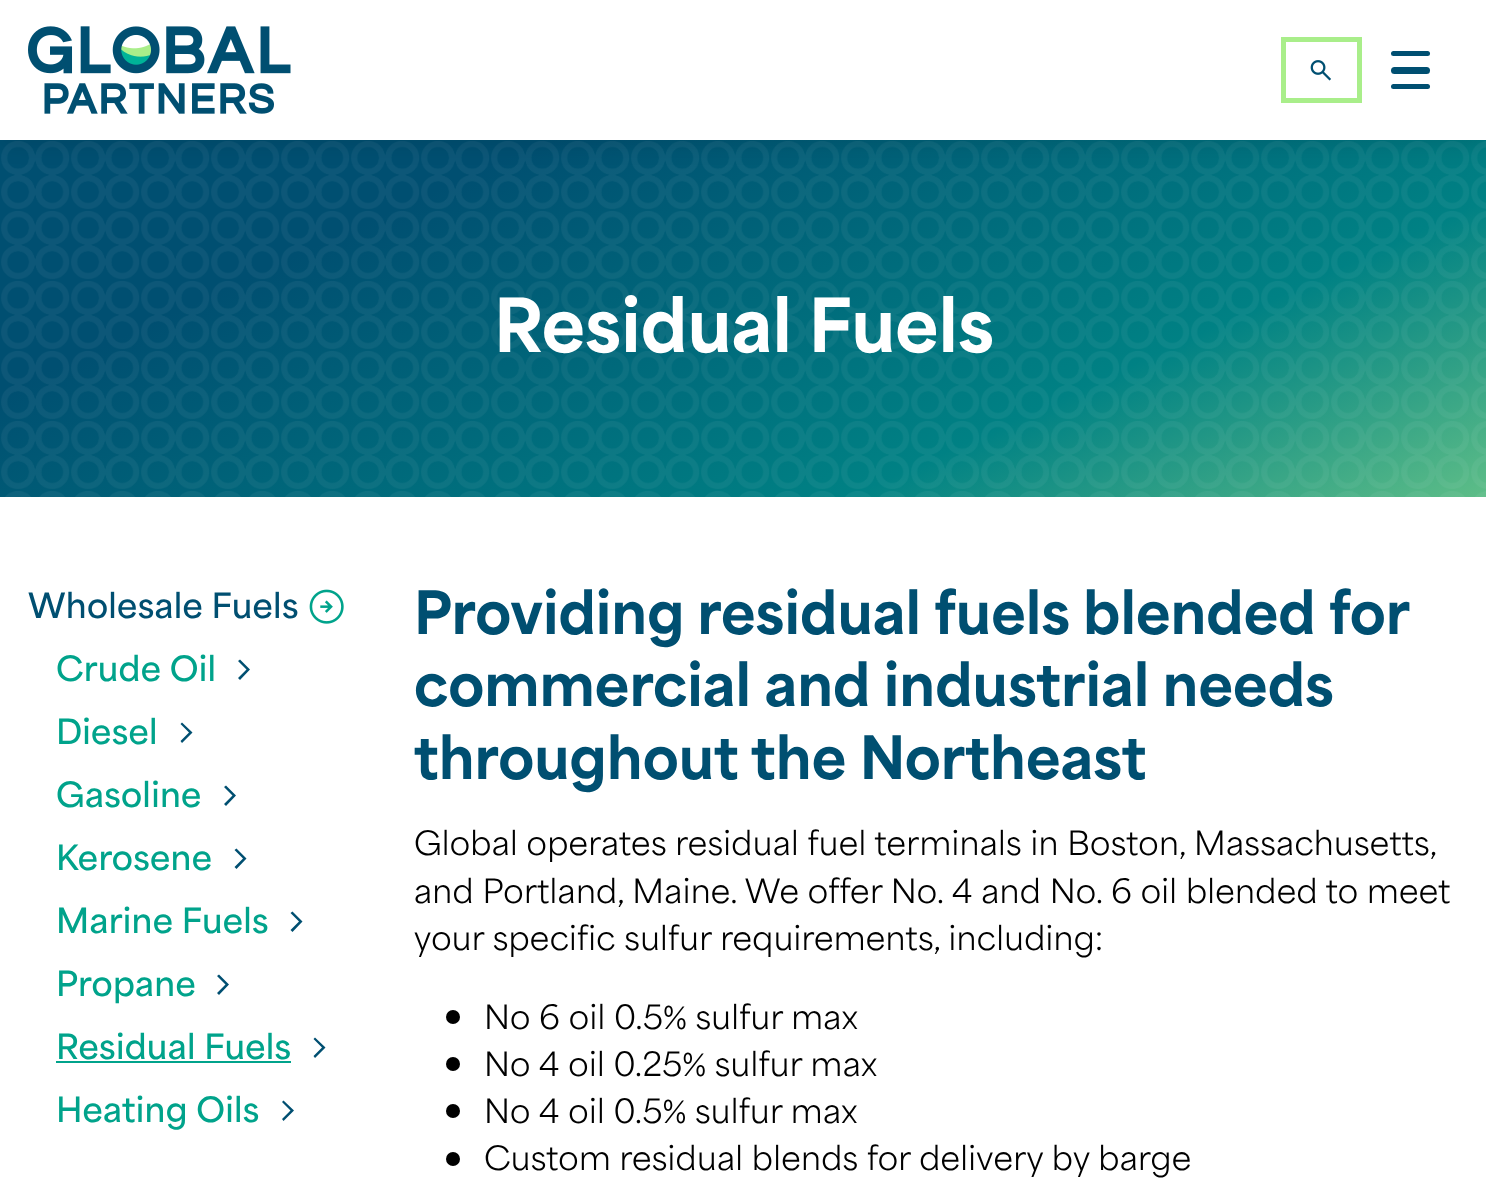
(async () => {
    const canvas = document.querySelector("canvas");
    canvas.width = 1486;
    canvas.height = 1181;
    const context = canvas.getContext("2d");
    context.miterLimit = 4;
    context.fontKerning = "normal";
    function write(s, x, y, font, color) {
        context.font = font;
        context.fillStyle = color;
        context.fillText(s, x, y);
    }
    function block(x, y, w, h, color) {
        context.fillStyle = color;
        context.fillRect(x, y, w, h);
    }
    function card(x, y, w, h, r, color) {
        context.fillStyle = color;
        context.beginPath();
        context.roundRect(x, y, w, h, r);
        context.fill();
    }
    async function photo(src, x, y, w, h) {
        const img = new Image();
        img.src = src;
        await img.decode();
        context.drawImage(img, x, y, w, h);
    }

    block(0, 0, 1486, 1181, "rgb(255, 255, 255)");
    await photo("media/3.png", 0, 140, 1486, 357);
    context.fillStyle = "rgba(0, 0, 0, 0.1)";
    context.filter = "blur(10.5px)";
    context.beginPath();
    context.rect(0, 4, 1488, 140);
    context.fill();
    context.filter = "none";
    block(0, 0, 1486, 140, "rgb(255, 255, 255)");
    await photo("media/1.png", 28, 26, 263, 88);
    context.strokeStyle = "rgb(169, 238, 138)";
    context.lineWidth = 5;
    context.strokeRect(1283.5, 39.5, 76, 61);
    await photo("media/2.png", 1310, 60, 21, 21);
    card(1391, 51, 39, 5, 2.5, "rgb(0, 79, 113)");
    card(1391, 67, 39, 7, 3.5, "rgb(0, 79, 113)");
    card(1391, 84, 39, 5, 2.5, "rgb(0, 79, 113)");
    write("Residual Fuels", 494, 352, "900 70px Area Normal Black", "rgb(255, 255, 255)");
    context.letterSpacing = "0.28px";
    write("Wholesale Fuels", 28, 618, "bold 32.75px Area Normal", "rgb(0, 79, 113)");
    await photo("media/4.png", 309, 589, 35, 35);
    write("Crude Oil", 56, 681, "bold 32.75px Area Normal", "rgb(0, 163, 139)");
    context.fillStyle = "rgb(0, 79, 113)";
    context.beginPath();
    context.moveTo(240, 680);
    context.lineTo(238, 678);
    context.lineTo(246.5, 669.5);
    context.lineTo(238, 661);
    context.lineTo(240, 659.5);
    context.lineTo(250, 669.5);
    context.closePath();
    context.fill();
    write("Diesel", 56, 744, "bold 32.75px Area Normal", "rgb(0, 163, 139)");
    context.fillStyle = "rgb(0, 79, 113)";
    context.beginPath();
    context.moveTo(182, 743);
    context.lineTo(180.5, 741);
    context.lineTo(189, 732.5);
    context.lineTo(180.5, 724);
    context.lineTo(182, 722.5);
    context.lineTo(192.5, 732.5);
    context.closePath();
    context.fill();
    write("Gasoline", 56, 807, "bold 32.75px Area Normal", "rgb(0, 163, 139)");
    context.fillStyle = "rgb(0, 79, 113)";
    context.beginPath();
    context.moveTo(226, 806);
    context.lineTo(224, 804);
    context.lineTo(232.5, 795.5);
    context.lineTo(224, 787);
    context.lineTo(226, 785.5);
    context.lineTo(236, 795.5);
    context.closePath();
    context.fill();
    write("Kerosene", 56, 870, "bold 32.75px Area Normal", "rgb(0, 163, 139)");
    context.fillStyle = "rgb(0, 79, 113)";
    context.beginPath();
    context.moveTo(236.5, 869);
    context.lineTo(234.5, 867);
    context.lineTo(243, 858.5);
    context.lineTo(234.5, 850);
    context.lineTo(236.5, 848.5);
    context.lineTo(246.5, 858.5);
    context.closePath();
    context.fill();
    write("Marine Fuels", 56, 933, "bold 32.75px Area Normal", "rgb(0, 163, 139)");
    context.fillStyle = "rgb(0, 79, 113)";
    context.beginPath();
    context.moveTo(292.5, 932);
    context.lineTo(290.5, 930);
    context.lineTo(299, 921.5);
    context.lineTo(290.5, 913);
    context.lineTo(292.5, 911.5);
    context.lineTo(302.5, 921.5);
    context.closePath();
    context.fill();
    write("Propane", 56, 996, "bold 32.75px Area Normal", "rgb(0, 163, 139)");
    context.fillStyle = "rgb(0, 79, 113)";
    context.beginPath();
    context.moveTo(219, 995);
    context.lineTo(217, 993);
    context.lineTo(225.5, 984.5);
    context.lineTo(217, 976);
    context.lineTo(219, 974.5);
    context.lineTo(229, 984.5);
    context.closePath();
    context.fill();
    write("Residual Fuels", 56, 1059, "bold 32.75px Area Normal", "rgb(0, 163, 139)");
    block(56, 1061, 235, 2, "rgb(0, 163, 139)");
    context.fillStyle = "rgb(0, 79, 113)";
    context.beginPath();
    context.moveTo(315, 1058);
    context.lineTo(313.5, 1056);
    context.lineTo(322, 1047.5);
    context.lineTo(313.5, 1039);
    context.lineTo(315, 1037.5);
    context.lineTo(325.5, 1047.5);
    context.closePath();
    context.fill();
    write("Heating Oils", 56, 1122, "bold 32.75px Area Normal", "rgb(0, 163, 139)");
    context.fillStyle = "rgb(0, 79, 113)";
    context.beginPath();
    context.moveTo(283.5, 1121);
    context.lineTo(282, 1119);
    context.lineTo(290.5, 1110.5);
    context.lineTo(282, 1102);
    context.lineTo(283.5, 1100.5);
    context.lineTo(294, 1110.5);
    context.closePath();
    context.fill();
    context.letterSpacing = "0px";
    context.wordSpacing = "-0.5px";
    write("Providing residual fuels blended for", 414, 634, "900 56px Area Normal Black", "rgb(0, 79, 113)");
    context.wordSpacing = "0px";
    write("commercial and industrial needs", 414, 706, "900 56px Area Normal Black", "rgb(0, 79, 113)");
    write("throughout the Northeast", 414, 779, "900 56px Area Normal Black", "rgb(0, 79, 113)");
    context.letterSpacing = "0.28px";
    write("Global operates residual fuel terminals in Boston, Massachusetts,", 414, 855, "31.5px Area Normal", "rgb(0, 0, 0)");
    write("and Portland, Maine. We offer No. 4 and No. 6 oil blended to meet", 414, 903, "31.5px Area Normal", "rgb(0, 0, 0)");
    write("your specific sulfur requirements, including:", 414, 950, "31.5px Area Normal", "rgb(0, 0, 0)");
    context.beginPath();
    context.arc(453, 1017, 7, 0, Math.PI * 2);
    context.fill();
    write("No 6 oil 0.5% sulfur max", 484, 1029, "31.5px Area Normal", "rgb(0, 0, 0)");
    context.beginPath();
    context.arc(453, 1064, 7, 0, Math.PI * 2);
    context.fill();
    write("No 4 oil 0.25% sulfur max", 484, 1076, "31.5px Area Normal", "rgb(0, 0, 0)");
    context.beginPath();
    context.arc(453, 1111, 7, 0, Math.PI * 2);
    context.fill();
    write("No 4 oil 0.5% sulfur max", 484, 1123, "31.5px Area Normal", "rgb(0, 0, 0)");
    context.beginPath();
    context.arc(453, 1159, 7, 0, Math.PI * 2);
    context.fill();
    write("Custom residual blends for delivery by barge", 484, 1170, "31.5px Area Normal", "rgb(0, 0, 0)");
})();
